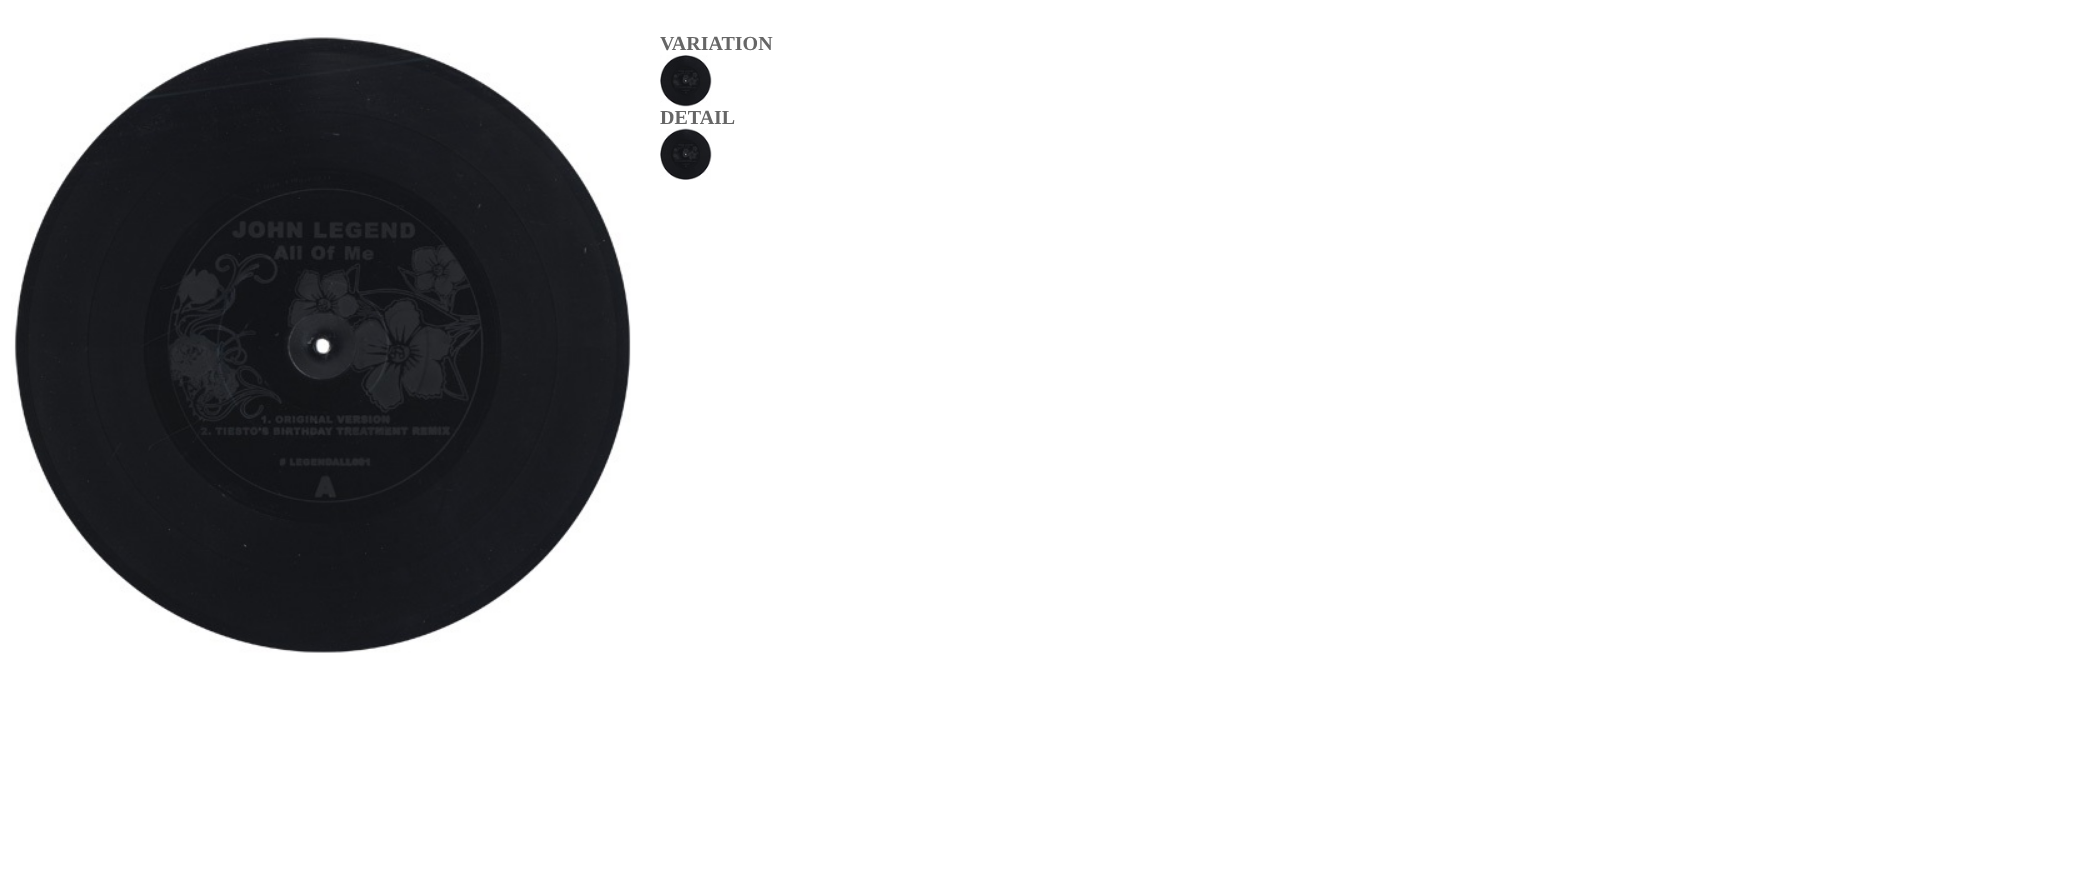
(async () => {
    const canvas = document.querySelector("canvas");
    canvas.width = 2084;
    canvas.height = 887;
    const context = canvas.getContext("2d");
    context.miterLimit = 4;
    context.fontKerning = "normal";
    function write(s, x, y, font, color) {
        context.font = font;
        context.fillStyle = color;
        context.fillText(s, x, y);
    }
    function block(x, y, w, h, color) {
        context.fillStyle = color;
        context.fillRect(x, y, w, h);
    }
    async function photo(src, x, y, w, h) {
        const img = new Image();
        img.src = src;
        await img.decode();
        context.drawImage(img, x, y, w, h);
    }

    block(0, 0, 2084, 887, "rgb(255, 255, 255)");
    await photo("media/1.png", 11, 34, 620, 619);
    write("VARIATION", 660, 50, "bold 20px Liberation Serif", "rgb(102, 102, 102)");
    await photo("media/2.png", 660, 55, 52, 52);
    write("DETAIL", 660, 124, "bold 20px Liberation Serif", "rgb(102, 102, 102)");
    await photo("media/3.png", 660, 128, 52, 52);
})();
